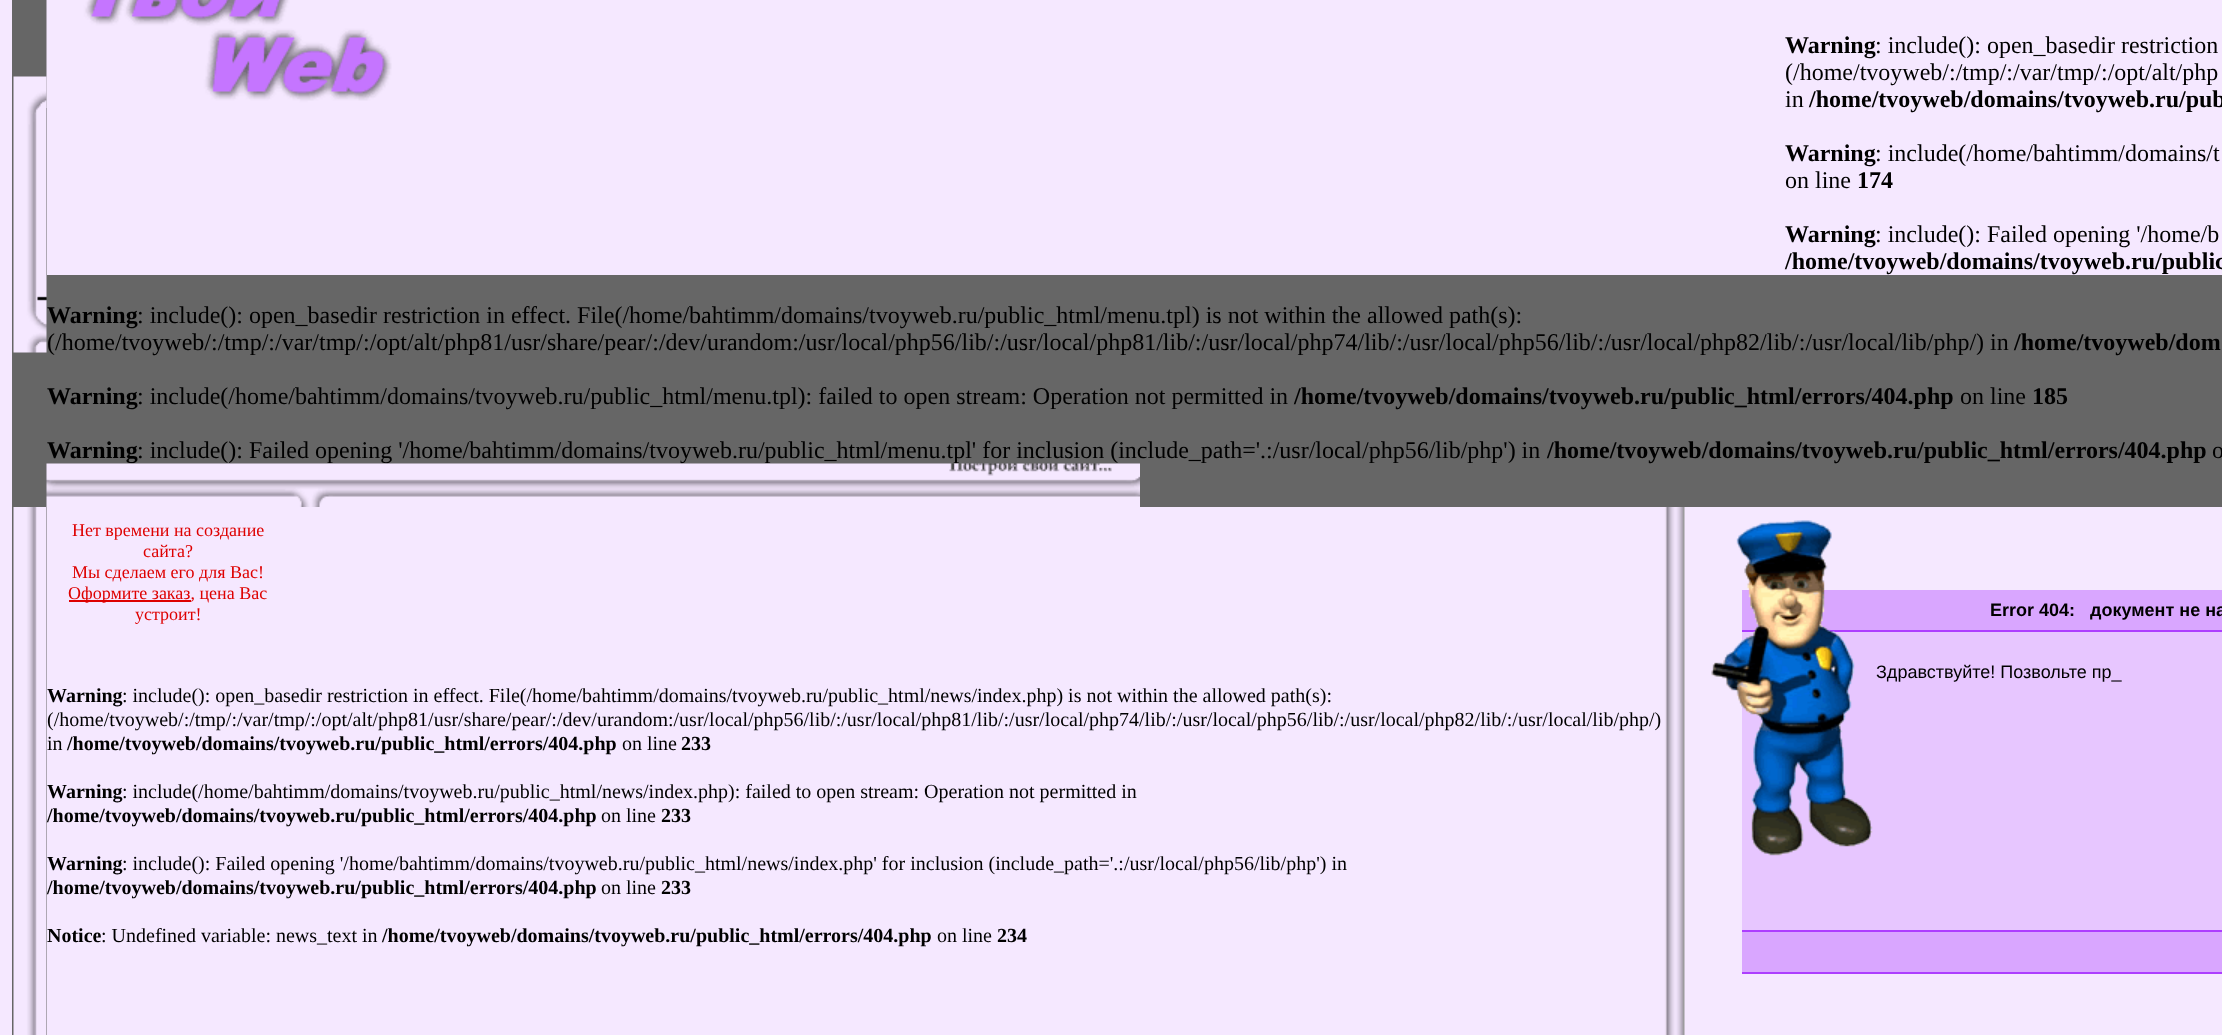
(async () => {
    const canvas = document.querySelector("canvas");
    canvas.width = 2222;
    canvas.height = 1035;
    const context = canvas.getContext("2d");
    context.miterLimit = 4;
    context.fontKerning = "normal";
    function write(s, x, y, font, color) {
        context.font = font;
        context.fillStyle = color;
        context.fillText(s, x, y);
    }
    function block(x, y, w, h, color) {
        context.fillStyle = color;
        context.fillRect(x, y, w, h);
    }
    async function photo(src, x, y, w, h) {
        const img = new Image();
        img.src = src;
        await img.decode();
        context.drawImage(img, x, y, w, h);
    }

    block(0, 0, 2222, 1035, "rgb(245, 232, 255)");
    block(12, 0, 2210, 1035, "rgb(102, 102, 102)");
    await photo("media/1.png", 13, 76, 34, 277);
    block(1785, 0, 437, 275, "rgb(245, 232, 255)");
    block(47, 0, 1738, 275, "rgb(245, 232, 255)");
    await photo("media/2.png", 46, 0, 346, 108);
    write("Warning", 1785, 53, "bold 24px Liberation Serif", "rgb(0, 0, 0)");
    write(": include(): open_basedir restriction", 1875, 53, "24px Liberation Serif", "rgb(0, 0, 0)");
    write("(/home/tvoyweb/:/tmp/:/var/tmp/:/opt/alt/php", 1785, 80, "24px Liberation Serif", "rgb(0, 0, 0)");
    write("in", 1785, 107, "24px Liberation Serif", "rgb(0, 0, 0)");
    write("/home/tvoyweb/domains/tvoyweb.ru/pub", 1809, 107, "bold 24px Liberation Serif", "rgb(0, 0, 0)");
    write("Warning", 1785, 161, "bold 24px Liberation Serif", "rgb(0, 0, 0)");
    write(": include(/home/bahtimm/domains/t", 1875, 161, "24px Liberation Serif", "rgb(0, 0, 0)");
    write("on line", 1785, 188, "24px Liberation Serif", "rgb(0, 0, 0)");
    write("174", 1857, 188, "bold 24px Liberation Serif", "rgb(0, 0, 0)");
    write("Warning", 1785, 242, "bold 24px Liberation Serif", "rgb(0, 0, 0)");
    write(": include(): Failed opening '/home/b", 1875, 242, "24px Liberation Serif", "rgb(0, 0, 0)");
    write("/home/tvoyweb/domains/tvoyweb.ru/public", 1785, 269, "bold 24px Liberation Serif", "rgb(0, 0, 0)");
    write("Warning", 47, 323, "bold 24px Liberation Serif", "rgb(0, 0, 0)");
    write(": include(): open_basedir restriction in effect. File(/home/bahtimm/domains/tvoyweb.ru/public_html/menu.tpl) is not within the allowed path(s):", 137, 323, "24px Liberation Serif", "rgb(0, 0, 0)");
    write("(/home/tvoyweb/:/tmp/:/var/tmp/:/opt/alt/php81/usr/share/pear/:/dev/urandom:/usr/local/php56/lib/:/usr/local/php81/lib/:/usr/local/php74/lib/:/usr/local/php56/lib/:/usr/local/php82/lib/:/usr/local/lib/php/) in", 47, 350, "24px Liberation Serif", "rgb(0, 0, 0)");
    write("/home/tvoyweb/dom", 2014, 350, "bold 24px Liberation Serif", "rgb(0, 0, 0)");
    write("Warning", 47, 404, "bold 24px Liberation Serif", "rgb(0, 0, 0)");
    write(": include(/home/bahtimm/domains/tvoyweb.ru/public_html/menu.tpl): failed to open stream: Operation not permitted in", 137, 404, "24px Liberation Serif", "rgb(0, 0, 0)");
    write("/home/tvoyweb/domains/tvoyweb.ru/public_html/errors/404.php", 1294, 404, "bold 24px Liberation Serif", "rgb(0, 0, 0)");
    write("on line", 1960, 404, "24px Liberation Serif", "rgb(0, 0, 0)");
    write("185", 2032, 404, "bold 24px Liberation Serif", "rgb(0, 0, 0)");
    write("Warning", 47, 458, "bold 24px Liberation Serif", "rgb(0, 0, 0)");
    write(": include(): Failed opening '/home/bahtimm/domains/tvoyweb.ru/public_html/menu.tpl' for inclusion (include_path='.:/usr/local/php56/lib/php') in", 137, 458, "24px Liberation Serif", "rgb(0, 0, 0)");
    write("/home/tvoyweb/domains/tvoyweb.ru/public_html/errors/404.php", 1547, 458, "bold 24px Liberation Serif", "rgb(0, 0, 0)");
    write("o", 2212, 458, "24px Liberation Serif", "rgb(0, 0, 0)");
    await photo("media/3.png", 46, 463, 1094, 44);
    await photo("media/4.png", 13, 507, 34, 528);
    block(47, 507, 1614, 528, "rgb(245, 232, 255)");
    write("Нет времени на создание", 72, 536, "18px Liberation Serif", "rgb(222, 0, 0)");
    write("сайта?", 143, 557, "18px Liberation Serif", "rgb(222, 0, 0)");
    write("Мы сделаем его для Вас!", 72, 578, "18px Liberation Serif", "rgb(222, 0, 0)");
    block(69, 600, 122, 2, "rgb(222, 0, 0)");
    write("Оформите заказ, цена Вас", 68, 599, "18px Liberation Serif", "rgb(222, 0, 0)");
    write("устроит!", 135, 620, "18px Liberation Serif", "rgb(222, 0, 0)");
    write("Warning", 47, 702, "bold 20px Liberation Serif", "rgb(0, 0, 0)");
    write(": include(): open_basedir restriction in effect. File(/home/bahtimm/domains/tvoyweb.ru/public_html/news/index.php) is not within the allowed path(s):", 122, 702, "20px Liberation Serif", "rgb(0, 0, 0)");
    write("(/home/tvoyweb/:/tmp/:/var/tmp/:/opt/alt/php81/usr/share/pear/:/dev/urandom:/usr/local/php56/lib/:/usr/local/php81/lib/:/usr/local/php74/lib/:/usr/local/php56/lib/:/usr/local/php82/lib/:/usr/local/lib/php/)", 47, 726, "20px Liberation Serif", "rgb(0, 0, 0)");
    write("in", 47, 750, "20px Liberation Serif", "rgb(0, 0, 0)");
    write("/home/tvoyweb/domains/tvoyweb.ru/public_html/errors/404.php", 67, 750, "bold 20px Liberation Serif", "rgb(0, 0, 0)");
    write("on line", 622, 750, "20px Liberation Serif", "rgb(0, 0, 0)");
    write("233", 681, 750, "bold 20px Liberation Serif", "rgb(0, 0, 0)");
    write("Warning", 47, 798, "bold 20px Liberation Serif", "rgb(0, 0, 0)");
    write(": include(/home/bahtimm/domains/tvoyweb.ru/public_html/news/index.php): failed to open stream: Operation not permitted in", 122, 798, "20px Liberation Serif", "rgb(0, 0, 0)");
    write("/home/tvoyweb/domains/tvoyweb.ru/public_html/errors/404.php", 47, 822, "bold 20px Liberation Serif", "rgb(0, 0, 0)");
    write("on line", 601, 822, "20px Liberation Serif", "rgb(0, 0, 0)");
    write("233", 661, 822, "bold 20px Liberation Serif", "rgb(0, 0, 0)");
    write("Warning", 47, 870, "bold 20px Liberation Serif", "rgb(0, 0, 0)");
    write(": include(): Failed opening '/home/bahtimm/domains/tvoyweb.ru/public_html/news/index.php' for inclusion (include_path='.:/usr/local/php56/lib/php') in", 122, 870, "20px Liberation Serif", "rgb(0, 0, 0)");
    write("/home/tvoyweb/domains/tvoyweb.ru/public_html/errors/404.php", 47, 894, "bold 20px Liberation Serif", "rgb(0, 0, 0)");
    write("on line", 601, 894, "20px Liberation Serif", "rgb(0, 0, 0)");
    write("233", 661, 894, "bold 20px Liberation Serif", "rgb(0, 0, 0)");
    write("Notice", 47, 942, "bold 20px Liberation Serif", "rgb(0, 0, 0)");
    write(": Undefined variable: news_text in", 101, 942, "20px Liberation Serif", "rgb(0, 0, 0)");
    write("/home/tvoyweb/domains/tvoyweb.ru/public_html/errors/404.php", 382, 942, "bold 20px Liberation Serif", "rgb(0, 0, 0)");
    write("on line", 937, 942, "20px Liberation Serif", "rgb(0, 0, 0)");
    write("234", 997, 942, "bold 20px Liberation Serif", "rgb(0, 0, 0)");
    await photo("media/5.png", 1661, 507, 28, 528);
    block(1689, 507, 533, 528, "rgb(245, 232, 255)");
    block(1742, 590, 480, 40, "rgb(217, 166, 255)");
    block(1742, 630, 480, 2, "rgb(173, 62, 255)");
    block(1742, 632, 480, 298, "rgb(231, 198, 255)");
    await photo("media/6.png", 1711, 520, 162, 336);
    write("Error 404:   документ не на", 1990, 616, "bold 18px Liberation Sans", "rgb(0, 0, 0)");
    block(1742, 930, 480, 2, "rgb(173, 62, 255)");
    write("Здравствуйте! Позвольте пр_", 1876, 678, "18px Liberation Sans", "rgb(0, 0, 0)");
    block(1742, 932, 480, 40, "rgb(217, 166, 255)");
    block(1742, 972, 480, 2, "rgb(173, 62, 255)");
})();
